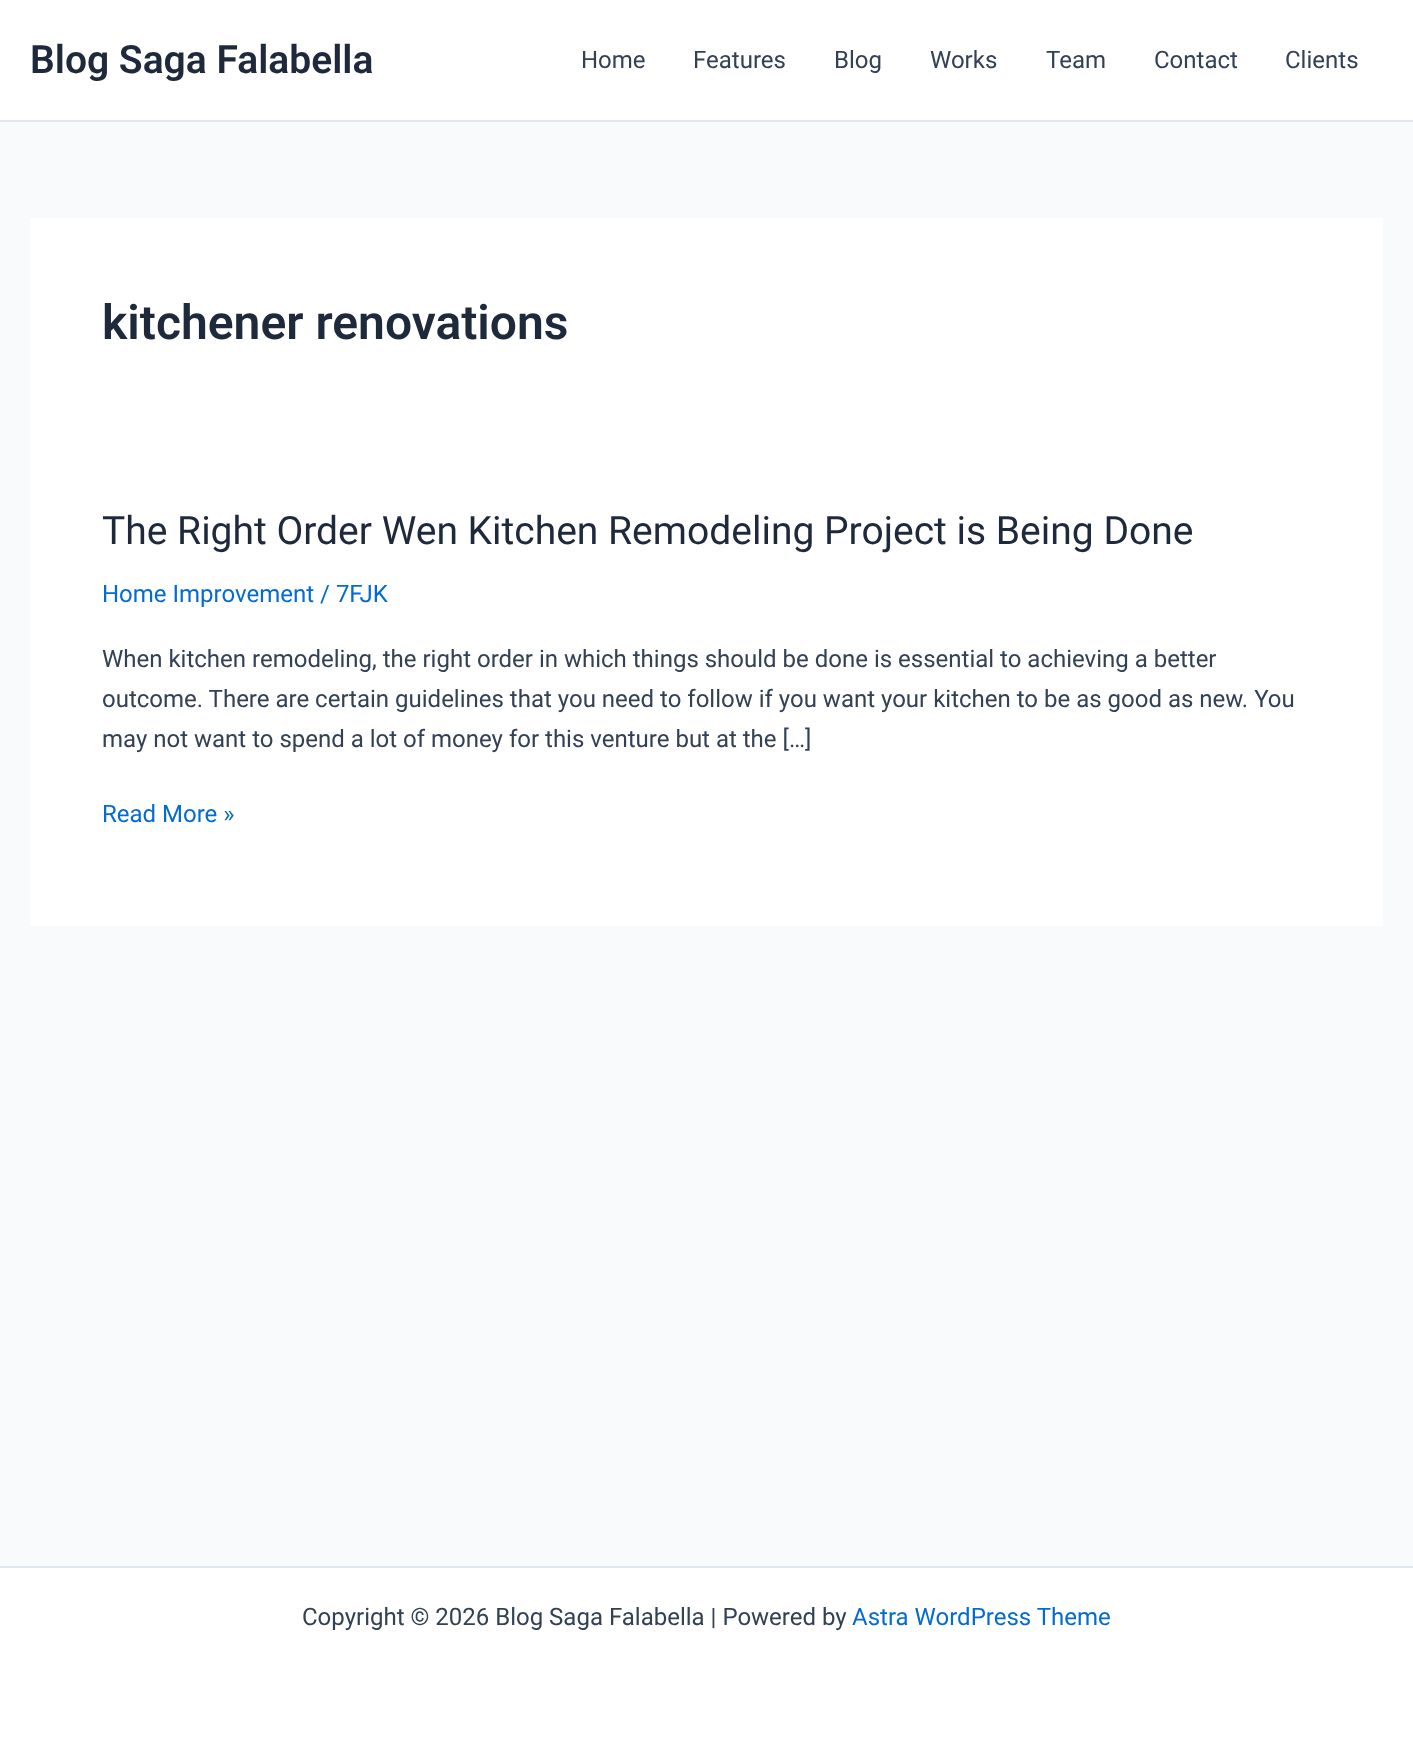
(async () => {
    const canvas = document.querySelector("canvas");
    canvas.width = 1413;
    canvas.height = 1747;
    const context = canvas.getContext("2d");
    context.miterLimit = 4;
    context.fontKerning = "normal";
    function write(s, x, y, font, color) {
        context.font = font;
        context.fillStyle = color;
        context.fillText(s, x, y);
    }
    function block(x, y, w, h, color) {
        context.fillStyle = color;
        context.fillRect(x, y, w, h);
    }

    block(0, 0, 1413, 1747, "rgb(249, 250, 251)");
    block(0, 0, 1413, 120, "rgb(255, 255, 255)");
    block(0, 120, 1413, 2, "rgb(226, 232, 240)");
    write("Blog Saga Falabella", 30, 73, "600 39px Roboto", "rgb(30, 41, 59)");
    write("Home", 581, 68, "24px Roboto", "rgb(51, 65, 85)");
    write("Features", 693, 68, "24px Roboto", "rgb(51, 65, 85)");
    write("Blog", 834, 68, "24px Roboto", "rgb(51, 65, 85)");
    write("Works", 930, 68, "24px Roboto", "rgb(51, 65, 85)");
    write("Team", 1046, 68, "24px Roboto", "rgb(51, 65, 85)");
    write("Contact", 1154, 68, "24px Roboto", "rgb(51, 65, 85)");
    write("Clients", 1285, 68, "24px Roboto", "rgb(51, 65, 85)");
    block(30, 218, 1353, 708, "rgb(255, 255, 255)");
    write("kitchener renovations", 102, 339, "600 48px Roboto", "rgb(30, 41, 59)");
    write("The Right Order Wen Kitchen Remodeling Project is Being Done", 102, 544, "39px Roboto", "rgb(30, 41, 59)");
    write("Home Improvement / 7FJK", 102, 602, "24px Roboto", "rgb(4, 107, 210)");
    write("When kitchen remodeling, the right order in which things should be done is essential to achieving a better", 102, 667, "24px Roboto", "rgb(51, 65, 85)");
    write("outcome. There are certain guidelines that you need to follow if you want your kitchen to be as good as new. You", 102, 707, "24px Roboto", "rgb(51, 65, 85)");
    write("may not want to spend a lot of money for this venture but at the […]", 102, 747, "24px Roboto", "rgb(51, 65, 85)");
    write("Read More »", 102, 822, "24px Roboto", "rgb(4, 107, 210)");
    block(0, 1568, 1413, 179, "rgb(255, 255, 255)");
    block(0, 1566, 1413, 2, "rgb(226, 232, 240)");
    write("Copyright © 2026 Blog Saga Falabella | Powered by", 302, 1625, "24px Roboto", "rgb(51, 65, 85)");
    write("Astra WordPress Theme", 852, 1625, "24px Roboto", "rgb(4, 107, 210)");
})();
